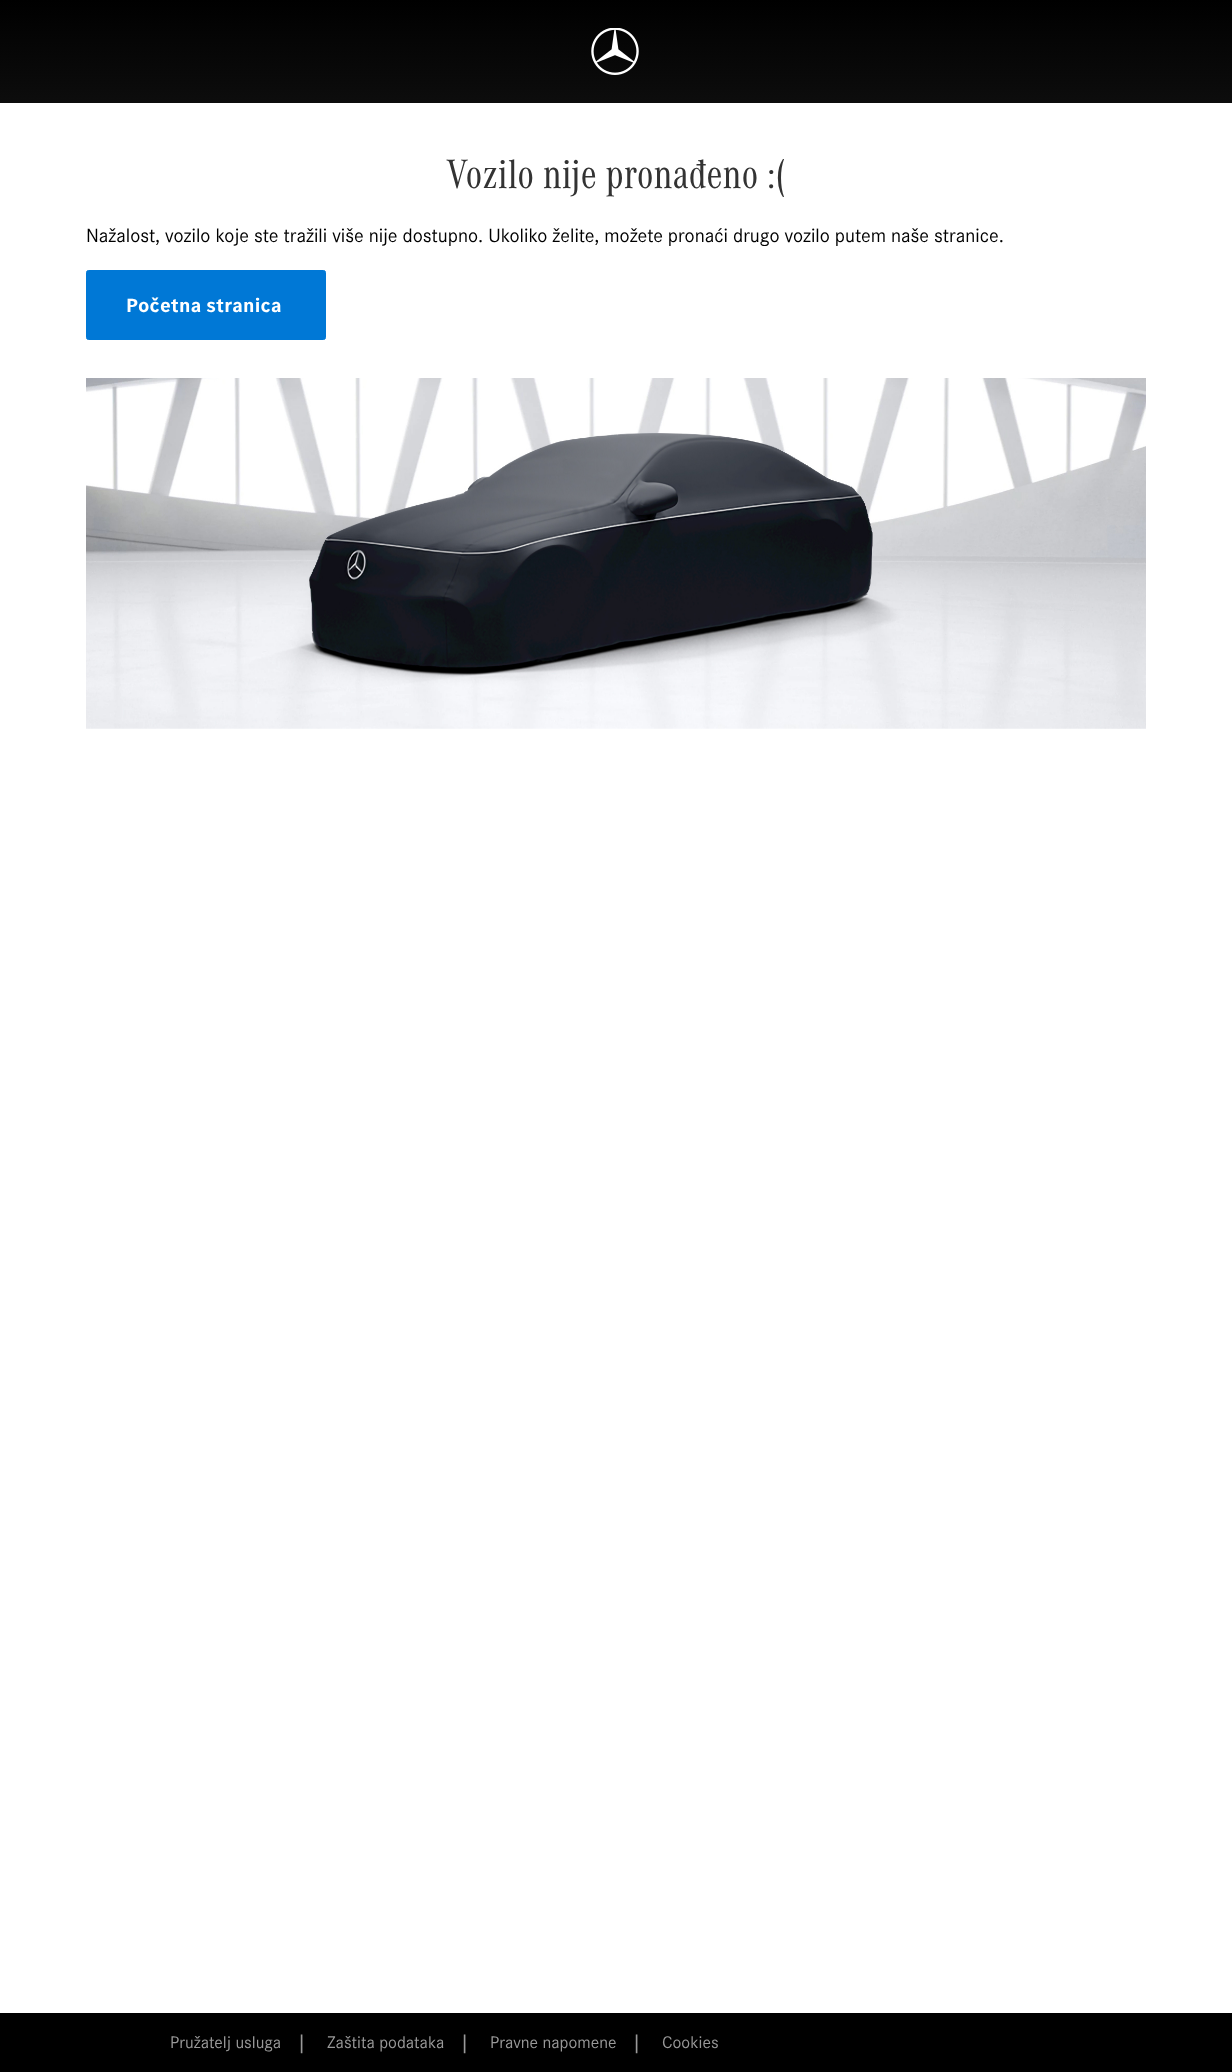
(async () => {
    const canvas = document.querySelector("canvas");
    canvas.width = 1232;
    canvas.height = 2072;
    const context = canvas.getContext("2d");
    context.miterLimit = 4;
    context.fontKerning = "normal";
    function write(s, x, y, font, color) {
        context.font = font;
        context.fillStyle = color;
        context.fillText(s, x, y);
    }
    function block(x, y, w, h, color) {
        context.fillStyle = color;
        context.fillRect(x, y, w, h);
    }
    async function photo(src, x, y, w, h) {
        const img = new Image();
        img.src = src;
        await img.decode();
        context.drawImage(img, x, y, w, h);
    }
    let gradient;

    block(0, 0, 1232, 2072, "rgb(255, 255, 255)");
    gradient = context.createLinearGradient(616, 0, 616, 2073);
    gradient.addColorStop(0, "rgb(0, 0, 0)");
    gradient.addColorStop(0.18, "rgb(46, 46, 46)");
    gradient.addColorStop(0.6, "rgb(0, 0, 0)");
    context.fillStyle = gradient;
    context.fillRect(0, 0, 1232, 2072);
    await photo("media/1.png", 591, 28, 48, 47);
    block(0, 103, 1232, 1910, "rgb(255, 255, 255)");
    write("Vozilo nije pronađeno :(", 446, 188, "42.5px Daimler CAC", "rgb(51, 51, 51)");
    write("Nažalost, vozilo koje ste tražili više nije dostupno. Ukoliko želite, možete pronaći drugo vozilo putem naše stranice.", 86, 242, "20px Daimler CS", "rgb(0, 0, 0)");
    context.fillStyle = "rgb(0, 120, 214)";
    context.beginPath();
    context.roundRect(86.5, 270.5, 239, 69, 2);
    context.fill();
    context.strokeStyle = "rgb(0, 120, 214)";
    context.stroke();
    context.letterSpacing = "0.25px";
    write("Početna stranica", 126, 312, "bold 20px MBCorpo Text", "rgb(255, 255, 255)");
    await photo("media/2.png", 86, 378, 1060, 351);
    context.letterSpacing = "0px";
    write("Pružatelj usluga", 170, 2048, "17.5px Daimler CS", "rgb(153, 153, 153)");
    write("|", 299, 2049, "20px Liberation Sans", "rgb(153, 153, 153)");
    write("Zaštita podataka", 327, 2048, "17.5px Daimler CS", "rgb(153, 153, 153)");
    write("|", 462, 2049, "20px Liberation Sans", "rgb(153, 153, 153)");
    write("Pravne napomene", 490, 2048, "17.5px Daimler CS", "rgb(153, 153, 153)");
    write("|", 634, 2049, "20px Liberation Sans", "rgb(153, 153, 153)");
    write("Cookies", 662, 2048, "17.5px Daimler CS", "rgb(153, 153, 153)");
})();
